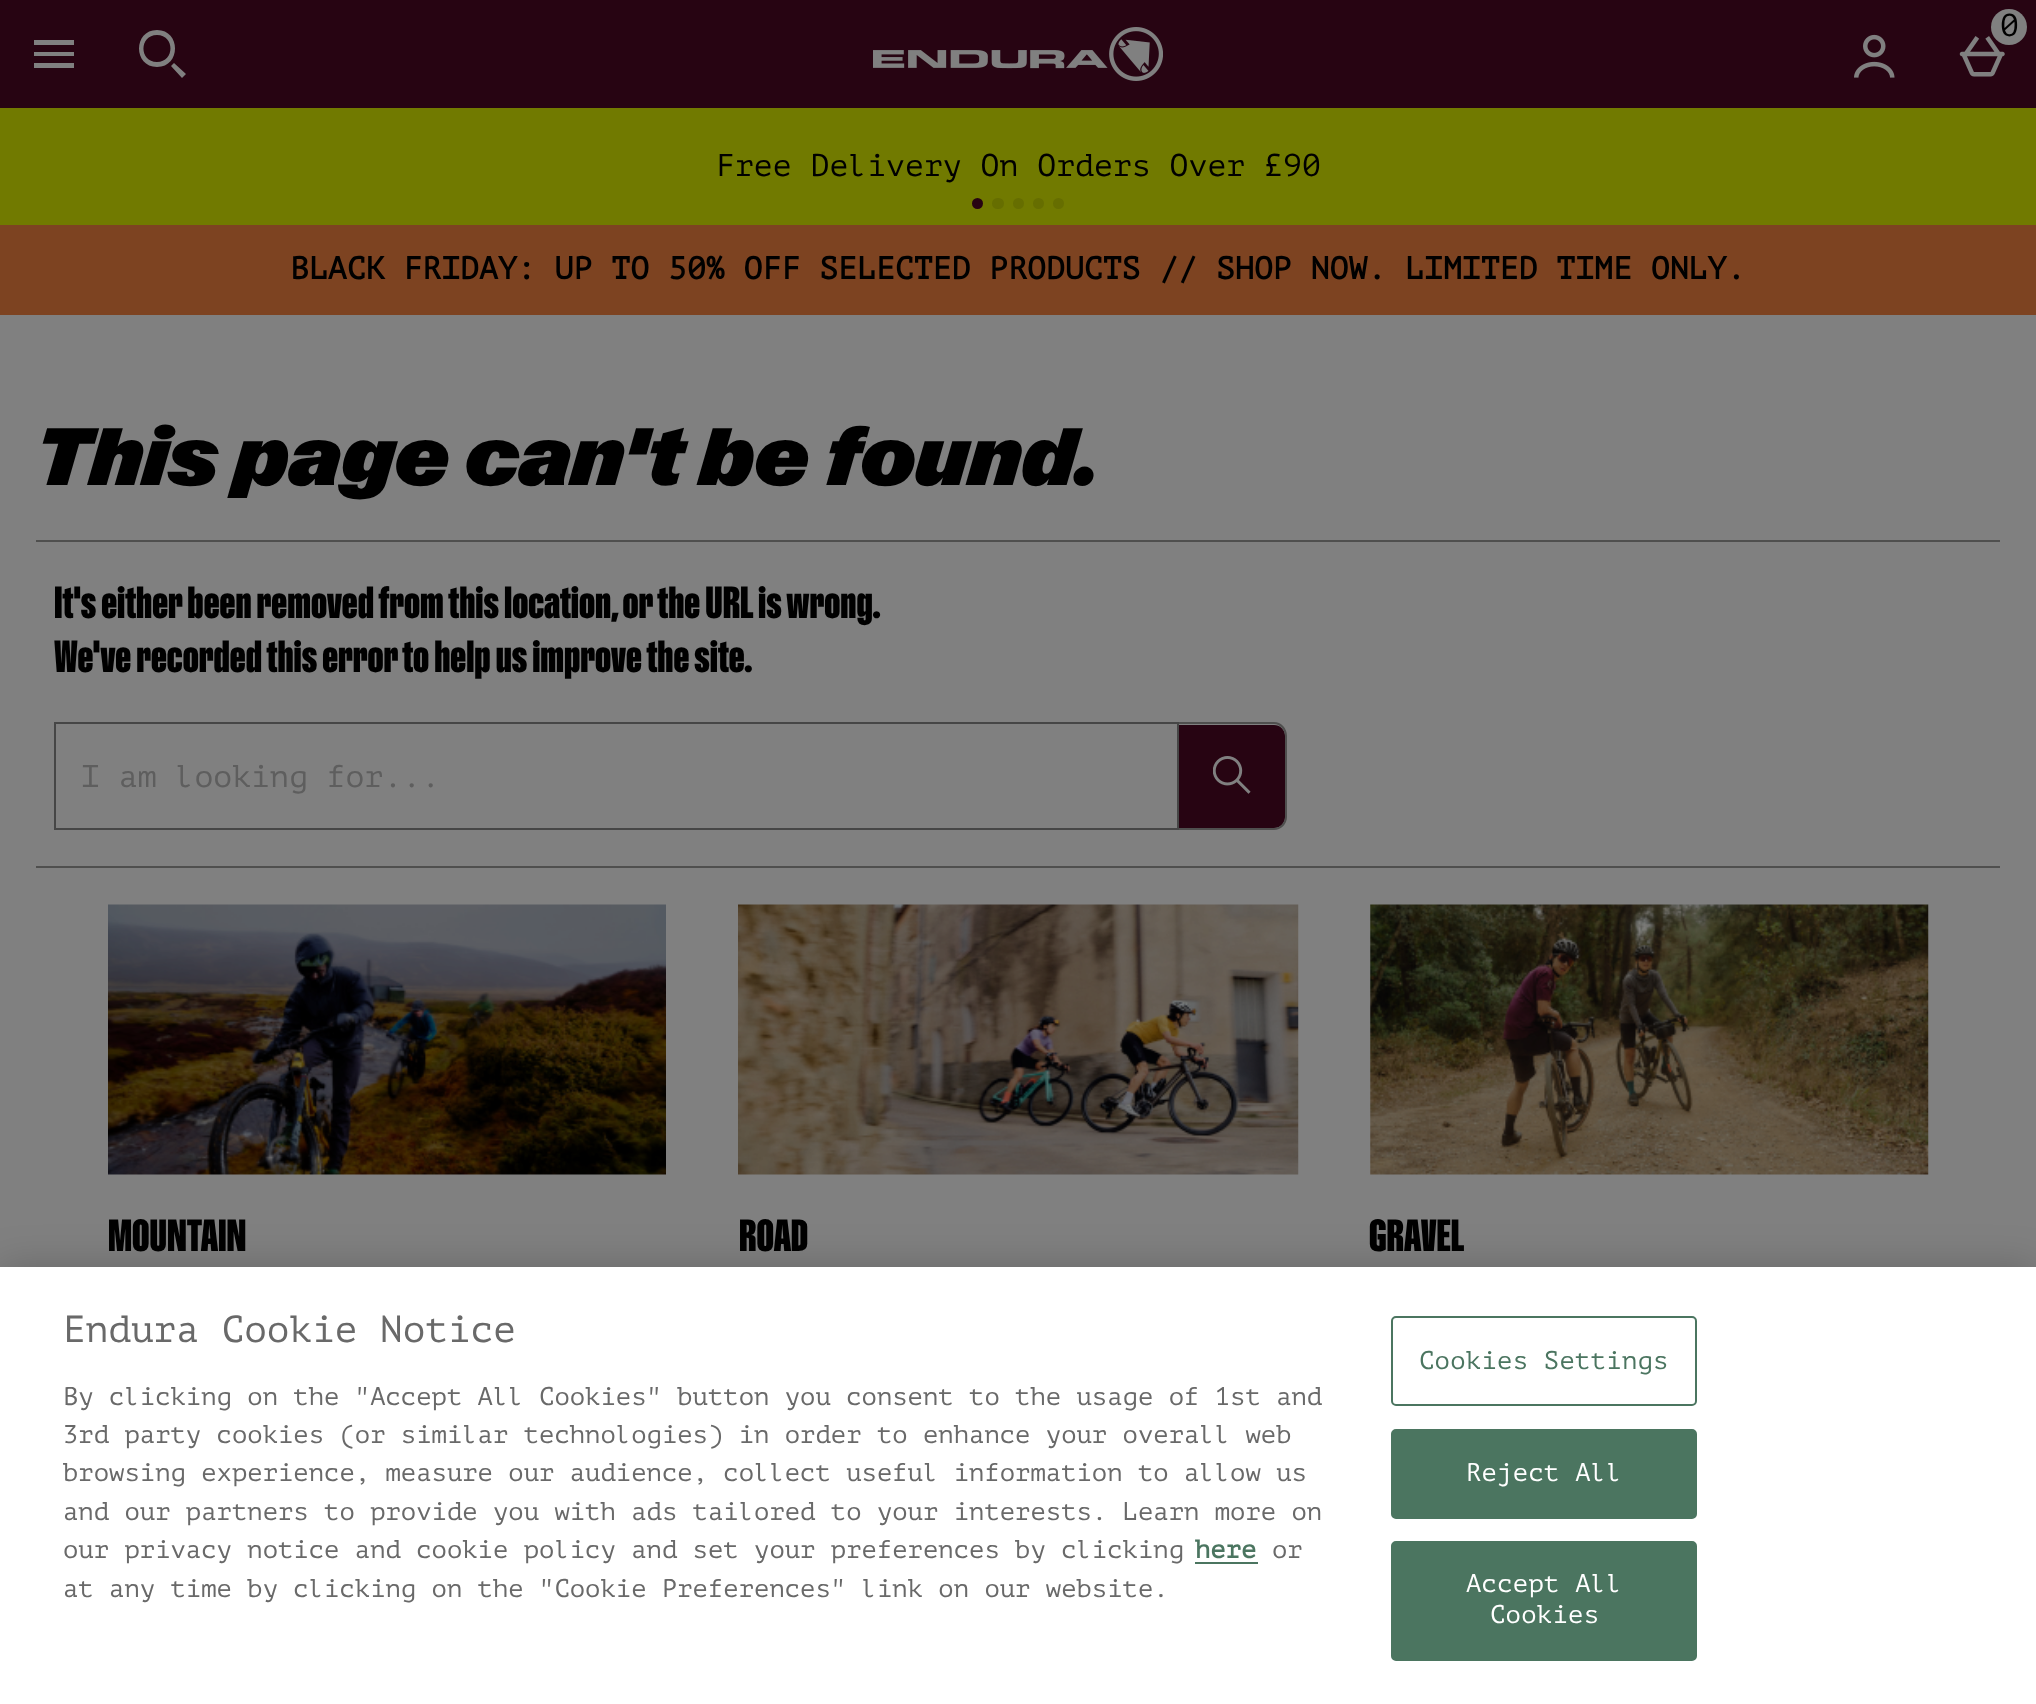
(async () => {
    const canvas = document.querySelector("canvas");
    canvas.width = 2036;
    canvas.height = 1704;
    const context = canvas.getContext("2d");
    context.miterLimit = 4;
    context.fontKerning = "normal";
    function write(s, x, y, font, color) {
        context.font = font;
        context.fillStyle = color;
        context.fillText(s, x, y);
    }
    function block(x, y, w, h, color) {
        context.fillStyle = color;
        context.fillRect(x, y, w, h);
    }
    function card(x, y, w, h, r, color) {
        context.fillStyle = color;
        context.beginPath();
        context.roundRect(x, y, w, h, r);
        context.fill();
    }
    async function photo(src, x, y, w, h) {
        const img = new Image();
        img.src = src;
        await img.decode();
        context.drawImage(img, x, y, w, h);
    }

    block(0, 0, 2036, 1704, "rgb(128, 128, 128)");
    block(0, 0, 2036, 108, "rgb(39, 4, 18)");
    context.fillStyle = "rgb(128, 128, 128)";
    context.beginPath();
    context.moveTo(34, 52);
    context.lineTo(74, 52);
    context.lineTo(74, 56);
    context.lineTo(34, 56);
    context.closePath();
    context.moveTo(34, 40);
    context.lineTo(74, 40);
    context.lineTo(74, 45);
    context.lineTo(34, 45);
    context.closePath();
    context.moveTo(34, 63);
    context.lineTo(74, 63);
    context.lineTo(74, 68);
    context.lineTo(34, 68);
    context.closePath();
    context.fill();
    context.beginPath();
    context.moveTo(157, 62);
    context.bezierCurveTo(175, 62, 175, 35, 157, 35);
    context.bezierCurveTo(139, 35, 139, 62, 157, 62);
    context.closePath();
    context.moveTo(157, 67);
    context.bezierCurveTo(133, 67, 133, 30, 157, 30);
    context.bezierCurveTo(181, 30, 181, 67, 157, 67);
    context.closePath();
    context.moveTo(186, 74);
    context.lineTo(182, 78);
    context.lineTo(171, 66);
    context.lineTo(174, 63);
    context.closePath();
    context.fill();
    await photo("media/1.png", 873, 27, 290, 54);
    await photo("media/2.png", 1854, 34, 41, 44);
    await photo("media/3.png", 1959, 36, 46, 41);
    context.beginPath();
    context.arc(2009, 27, 18, 0, Math.PI * 2);
    context.fill();
    write("0", 2000, 36, "31.5px PT Mono", "rgb(0, 0, 0)");
    block(0, 108, 2036, 117, "rgb(113, 122, 0)");
    write("Free Delivery On Orders Over £90", 716, 176, "31.5px PT Mono", "rgb(0, 0, 0)");
    context.fillStyle = "rgb(39, 4, 18)";
    context.beginPath();
    context.arc(977.5, 203.5, 5.5, 0, Math.PI * 2);
    context.fill();
    card(992, 198, 12, 11, 5.5, "rgb(102, 110, 0)");
    context.beginPath();
    context.arc(1018.5, 203.5, 5.5, 0, Math.PI * 2);
    context.fill();
    context.beginPath();
    context.arc(1038.5, 203.5, 5.5, 0, Math.PI * 2);
    context.fill();
    context.beginPath();
    context.arc(1058.5, 203.5, 5.5, 0, Math.PI * 2);
    context.fill();
    block(0, 225, 2036, 90, "rgb(125, 67, 33)");
    write("BLACK FRIDAY: UP TO 50% OFF SELECTED PRODUCTS // SHOP NOW. LIMITED TIME ONLY.", 290, 279, "bold 31.5px PT Mono", "rgb(0, 0, 0)");
    write("This page can't be found.", 36, 485, "italic 900 81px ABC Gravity", "rgb(0, 0, 0)");
    block(36, 540, 1964, 2, "rgb(79, 79, 78)");
    write("It's either been removed from this location, or the URL is wrong.", 54, 618, "900 45px ABC Gravity", "rgb(0, 0, 0)");
    write("We've recorded this error to help us improve the site.", 54, 672, "900 45px ABC Gravity", "rgb(0, 0, 0)");
    context.strokeStyle = "rgb(70, 70, 70)";
    context.lineWidth = 2;
    context.strokeRect(55, 723, 1123, 106);
    write("I am looking for...", 81, 787, "31.5px PT Mono", "rgb(94, 94, 94)");
    context.fillStyle = "rgb(39, 4, 18)";
    context.beginPath();
    context.roundRect(1179, 725, 106, 103, [0, 11, 11, 0]);
    context.fill();
    context.fillStyle = "rgb(79, 79, 78)";
    context.beginPath();
    context.moveTo(1179, 722);
    context.lineTo(1274, 722);
    context.bezierCurveTo(1281, 722, 1287, 728, 1287, 736);
    context.lineTo(1287, 817);
    context.bezierCurveTo(1287, 824, 1281, 830, 1274, 830);
    context.lineTo(1179, 830);
    context.closePath();
    context.moveTo(1179, 724);
    context.lineTo(1274, 724);
    context.bezierCurveTo(1280, 724, 1285, 730, 1285, 736);
    context.lineTo(1285, 817);
    context.bezierCurveTo(1285, 823, 1280, 828, 1274, 828);
    context.lineTo(1179, 828);
    context.closePath();
    context.fill("evenodd");
    await photo("media/4.png", 1213, 756, 38, 38);
    block(36, 866, 1964, 2, "rgb(79, 79, 78)");
    await photo("media/5.png", 108, 904, 558, 271);
    write("MOUNTAIN", 108, 1251, "900 45px ABC Gravity", "rgb(0, 0, 0)");
    await photo("media/6.png", 738, 904, 561, 271);
    write("ROAD", 739, 1251, "900 45px ABC Gravity", "rgb(0, 0, 0)");
    await photo("media/7.png", 1370, 904, 559, 271);
    write("GRAVEL", 1369, 1251, "900 45px ABC Gravity", "rgb(0, 0, 0)");
    context.fillStyle = "rgba(0, 0, 0, 0.2)";
    context.filter = "blur(20px)";
    context.beginPath();
    context.rect(0, 1267, 2036, 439);
    context.fill();
    context.filter = "none";
    block(0, 1267, 2036, 437, "rgb(255, 255, 255)");
    write("Endura Cookie Notice", 63, 1342, "37.75px PT Mono", "rgb(105, 105, 105)");
    write("By clicking on the \"Accept All Cookies\" button you consent to the usage of 1st and", 63, 1405, "25.6px PT Mono", "rgb(105, 105, 105)");
    write("3rd party cookies (or similar technologies) in order to enhance your overall web", 63, 1443, "25.6px PT Mono", "rgb(105, 105, 105)");
    write("browsing experience, measure our audience, collect useful information to allow us", 63, 1481, "25.6px PT Mono", "rgb(105, 105, 105)");
    write("and our partners to provide you with ads tailored to your interests. Learn more on", 63, 1520, "25.6px PT Mono", "rgb(105, 105, 105)");
    write("our privacy notice and cookie policy and set your preferences by clicking", 63, 1558, "25.6px PT Mono", "rgb(105, 105, 105)");
    write("here", 1195, 1558, "bold 25.6px PT Mono", "rgb(75, 117, 96)");
    block(1195, 1562, 63, 2, "rgb(75, 117, 96)");
    write("or", 1272, 1558, "25.6px PT Mono", "rgb(105, 105, 105)");
    write("at any time by clicking on the \"Cookie Preferences\" link on our website.", 63, 1597, "25.6px PT Mono", "rgb(105, 105, 105)");
    context.beginPath();
    context.roundRect(1392, 1317, 304, 88, 4);
    context.strokeStyle = "rgb(75, 117, 96)";
    context.stroke();
    context.letterSpacing = "0.25px";
    write("Cookies Settings", 1419, 1369, "25.6px PT Mono", "rgb(75, 117, 96)");
    context.beginPath();
    context.roundRect(1392, 1430, 304, 88, 4);
    context.fill();
    context.stroke();
    write("Reject All", 1466, 1481, "25.6px PT Mono", "rgb(255, 255, 255)");
    context.fillStyle = "rgb(75, 117, 96)";
    context.beginPath();
    context.roundRect(1392, 1542, 304, 118, 4);
    context.fill();
    context.stroke();
    write("Accept All", 1466, 1592, "25.6px PT Mono", "rgb(255, 255, 255)");
    write("Cookies", 1490, 1623, "25.6px PT Mono", "rgb(255, 255, 255)");
})();
